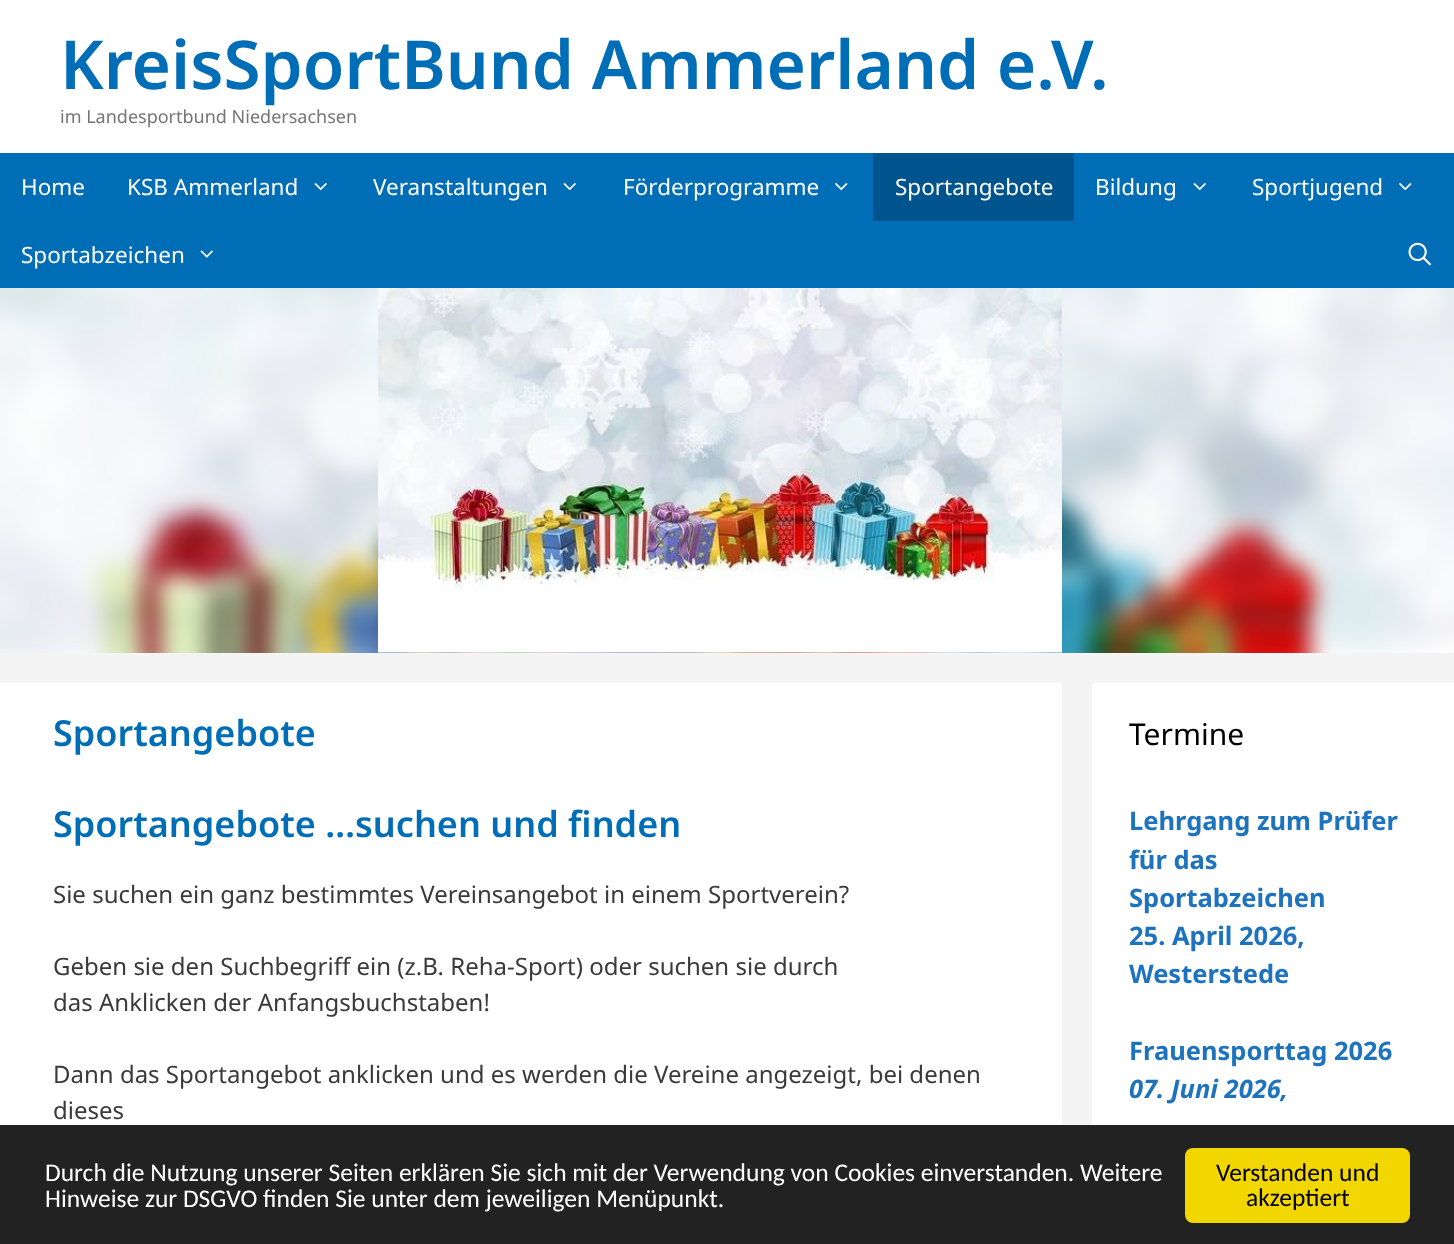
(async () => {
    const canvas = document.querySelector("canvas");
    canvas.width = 1454;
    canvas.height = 1244;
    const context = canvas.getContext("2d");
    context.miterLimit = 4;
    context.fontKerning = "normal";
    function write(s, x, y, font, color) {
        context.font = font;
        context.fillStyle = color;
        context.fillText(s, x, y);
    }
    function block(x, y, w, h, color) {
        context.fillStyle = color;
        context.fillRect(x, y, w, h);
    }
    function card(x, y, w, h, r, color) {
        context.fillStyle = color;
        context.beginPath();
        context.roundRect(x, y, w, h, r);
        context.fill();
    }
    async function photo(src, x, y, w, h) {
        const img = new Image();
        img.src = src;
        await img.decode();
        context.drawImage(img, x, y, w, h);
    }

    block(0, 0, 1454, 1244, "rgb(244, 244, 244)");
    block(0, 0, 1454, 153, "rgb(255, 255, 255)");
    write("KreisSportBund Ammerland e.V.", 60, 89, "600 67.5px Noto Sans", "rgb(0, 110, 183)");
    write("im Landesportbund Niedersachsen", 60, 123, "18px Noto Sans", "rgb(117, 117, 117)");
    block(0, 153, 1454, 135, "rgb(0, 110, 183)");
    write("Home", 21, 195, "22.5px Noto Sans", "rgb(255, 255, 255)");
    write("KSB Ammerland", 127, 195, "22.5px Noto Sans", "rgb(255, 255, 255)");
    await photo("media/1.png", 314, 183, 13, 8);
    write("Veranstaltungen", 373, 195, "22.5px Noto Sans", "rgb(255, 255, 255)");
    await photo("media/1.png", 563, 183, 13, 8);
    write("Förderprogramme", 623, 195, "22.5px Noto Sans", "rgb(255, 255, 255)");
    await photo("media/2.png", 835, 183, 13, 8);
    block(873, 153, 201, 68, "rgb(0, 84, 141)");
    write("Sportangebote", 895, 195, "22.5px Noto Sans", "rgb(255, 255, 255)");
    write("Bildung", 1095, 195, "22.5px Noto Sans", "rgb(255, 255, 255)");
    await photo("media/1.png", 1193, 183, 13, 8);
    write("Sportjugend", 1252, 195, "22.5px Noto Sans", "rgb(255, 255, 255)");
    await photo("media/2.png", 1399, 183, 13, 8);
    write("Sportabzeichen", 21, 263, "22.5px Noto Sans", "rgb(255, 255, 255)");
    await photo("media/3.png", 200, 250, 13, 8);
    await photo("media/4.png", 1408, 242, 23, 24);
    await photo("media/5.png", 0, 288, 1454, 365);
    await photo("media/6.png", 378, 288, 684, 365);
    block(0, 683, 1062, 442, "rgb(255, 255, 255)");
    write("Sportangebote", 53, 746, "600 36px Noto Sans", "rgb(0, 110, 183)");
    write("Sportangebote …suchen und finden", 53, 837, "600 36px Noto Sans", "rgb(0, 110, 183)");
    write("Sie suchen ein ganz bestimmtes Vereinsangebot in einem Sportverein?", 53, 903, "24px Noto Sans", "rgb(58, 58, 58)");
    write("Geben sie den Suchbegriff ein (z.B. Reha-Sport) oder suchen sie durch", 53, 975, "24px Noto Sans", "rgb(58, 58, 58)");
    write("das Anklicken der Anfangsbuchstaben!", 53, 1011, "24px Noto Sans", "rgb(58, 58, 58)");
    write("Dann das Sportangebot anklicken und es werden die Vereine angezeigt, bei denen", 53, 1083, "24px Noto Sans", "rgb(58, 58, 58)");
    write("dieses", 53, 1119, "24px Noto Sans", "rgb(58, 58, 58)");
    block(1092, 683, 362, 442, "rgb(255, 255, 255)");
    write("Termine", 1129, 745, "30px Noto Sans", "rgb(0, 0, 0)");
    write("Lehrgang zum Prüfer", 1129, 830, "bold 25.5px Noto Sans", "rgb(30, 115, 190)");
    write("für das", 1129, 869, "bold 25.5px Noto Sans", "rgb(30, 115, 190)");
    write("Sportabzeichen", 1129, 907, "bold 25.5px Noto Sans", "rgb(30, 115, 190)");
    write("25. April 2026,", 1129, 945, "bold 25.5px Noto Sans", "rgb(30, 115, 190)");
    write("Westerstede", 1129, 983, "bold 25.5px Noto Sans", "rgb(30, 115, 190)");
    write("Frauensporttag 2026", 1129, 1060, "bold 25.5px Noto Sans", "rgb(30, 115, 190)");
    write("07. Juni 2026,", 1129, 1098, "italic bold 25.5px Noto Sans", "rgb(30, 115, 190)");
    block(0, 1125, 1454, 119, "rgb(34, 34, 34)");
    write("Durch die Nutzung unserer Seiten erklären Sie sich mit der Verwendung von Cookies einverstanden. Weitere", 45, 1181, "25.5px Carlito", "rgb(255, 255, 255)");
    write("Hinweise zur DSGVO finden Sie unter dem jeweiligen Menüpunkt.", 45, 1207, "25.5px Carlito", "rgb(255, 255, 255)");
    card(1185, 1148, 225, 75, 8, "rgb(241, 214, 0)");
    write("Verstanden und", 1216, 1181, "25.5px Carlito", "rgb(0, 0, 0)");
    write("akzeptiert", 1246, 1206, "25.5px Carlito", "rgb(0, 0, 0)");
})();
